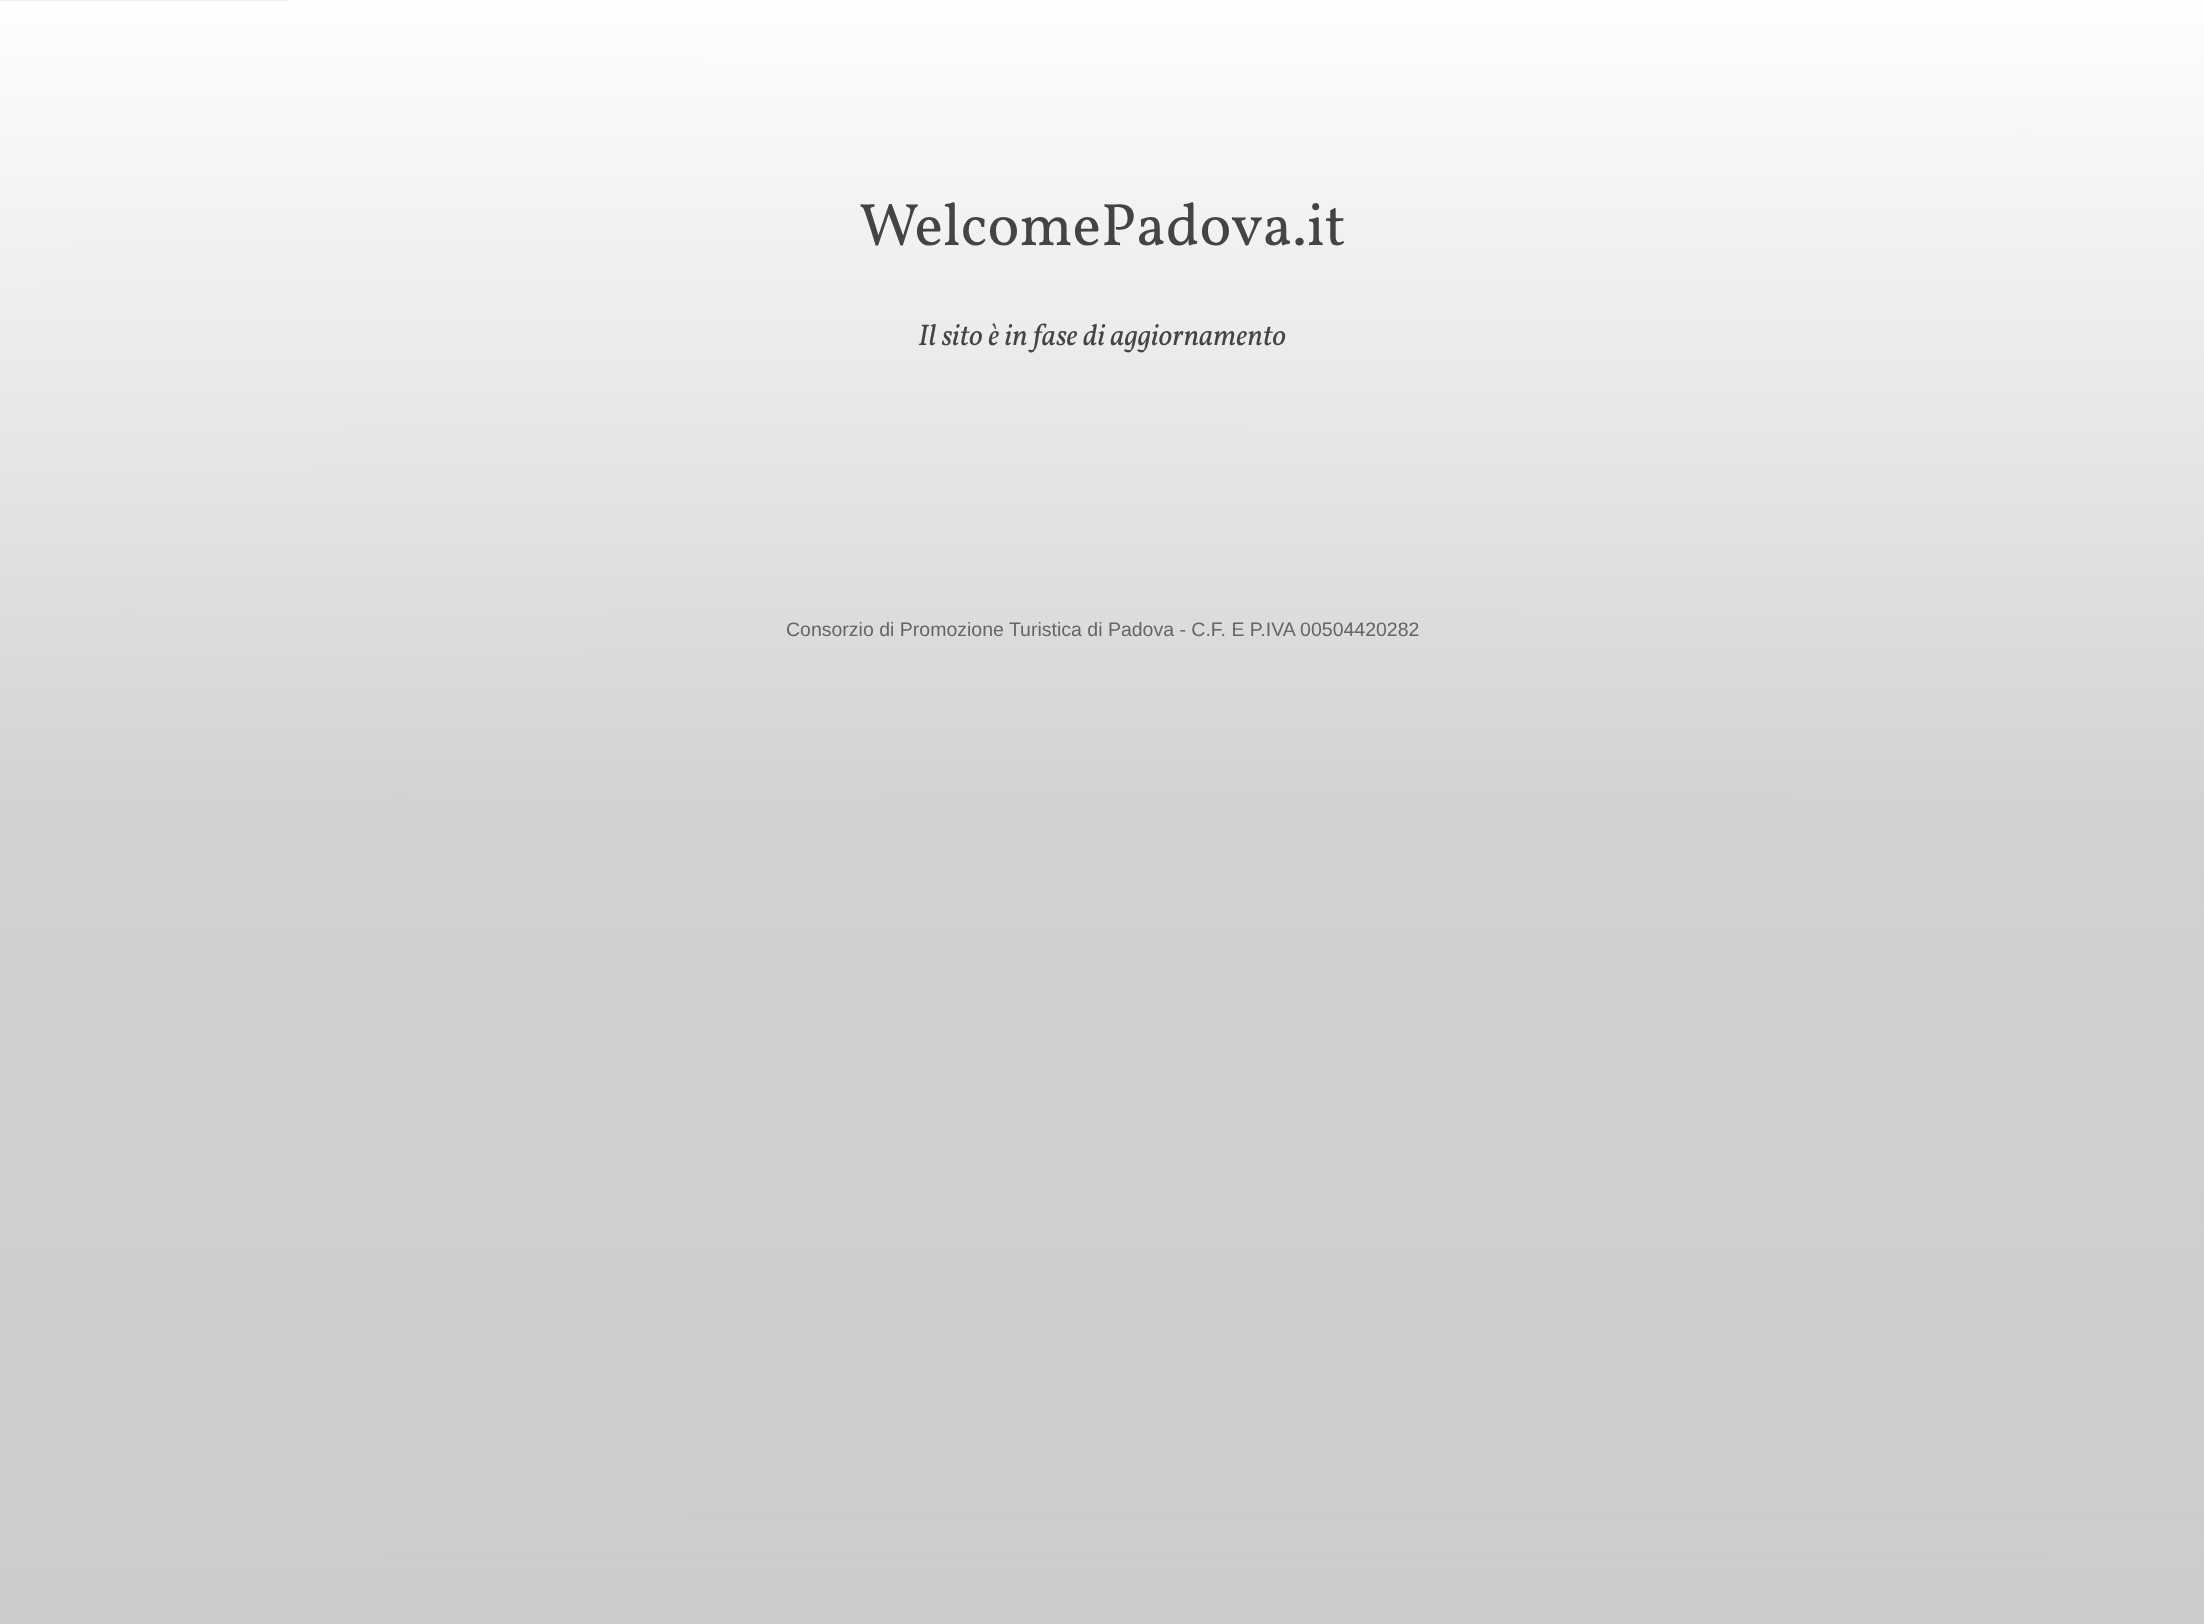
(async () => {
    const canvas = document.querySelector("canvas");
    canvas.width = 2204;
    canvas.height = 1624;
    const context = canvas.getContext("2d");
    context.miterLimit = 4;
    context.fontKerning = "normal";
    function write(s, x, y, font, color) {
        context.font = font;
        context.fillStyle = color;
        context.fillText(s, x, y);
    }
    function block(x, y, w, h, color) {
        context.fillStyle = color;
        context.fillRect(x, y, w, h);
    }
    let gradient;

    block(0, 0, 2204, 1624, "rgb(255, 255, 255)");
    gradient = context.createLinearGradient(1102, 0, 1103, 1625);
    gradient.addColorStop(0, "rgb(240, 240, 240)");
    gradient.addColorStop(0, "rgb(254, 254, 254)");
    gradient.addColorStop(0.51, "rgb(209, 209, 209)");
    gradient.addColorStop(1, "rgb(204, 204, 204)");
    context.fillStyle = gradient;
    context.fillRect(0, 0, 2204, 1624);
    write("WelcomePadova.it", 859, 245, "60px Vollkorn", "rgb(68, 68, 68)");
    write("Il sito è in fase di aggiornamento", 918, 345, "italic 30px Vollkorn", "rgb(68, 68, 68)");
    write("Consorzio di Promozione Turistica di Padova - C.F. E P.IVA 00504420282", 786, 636, "19.5px Liberation Sans", "rgb(101, 101, 101)");
})();
